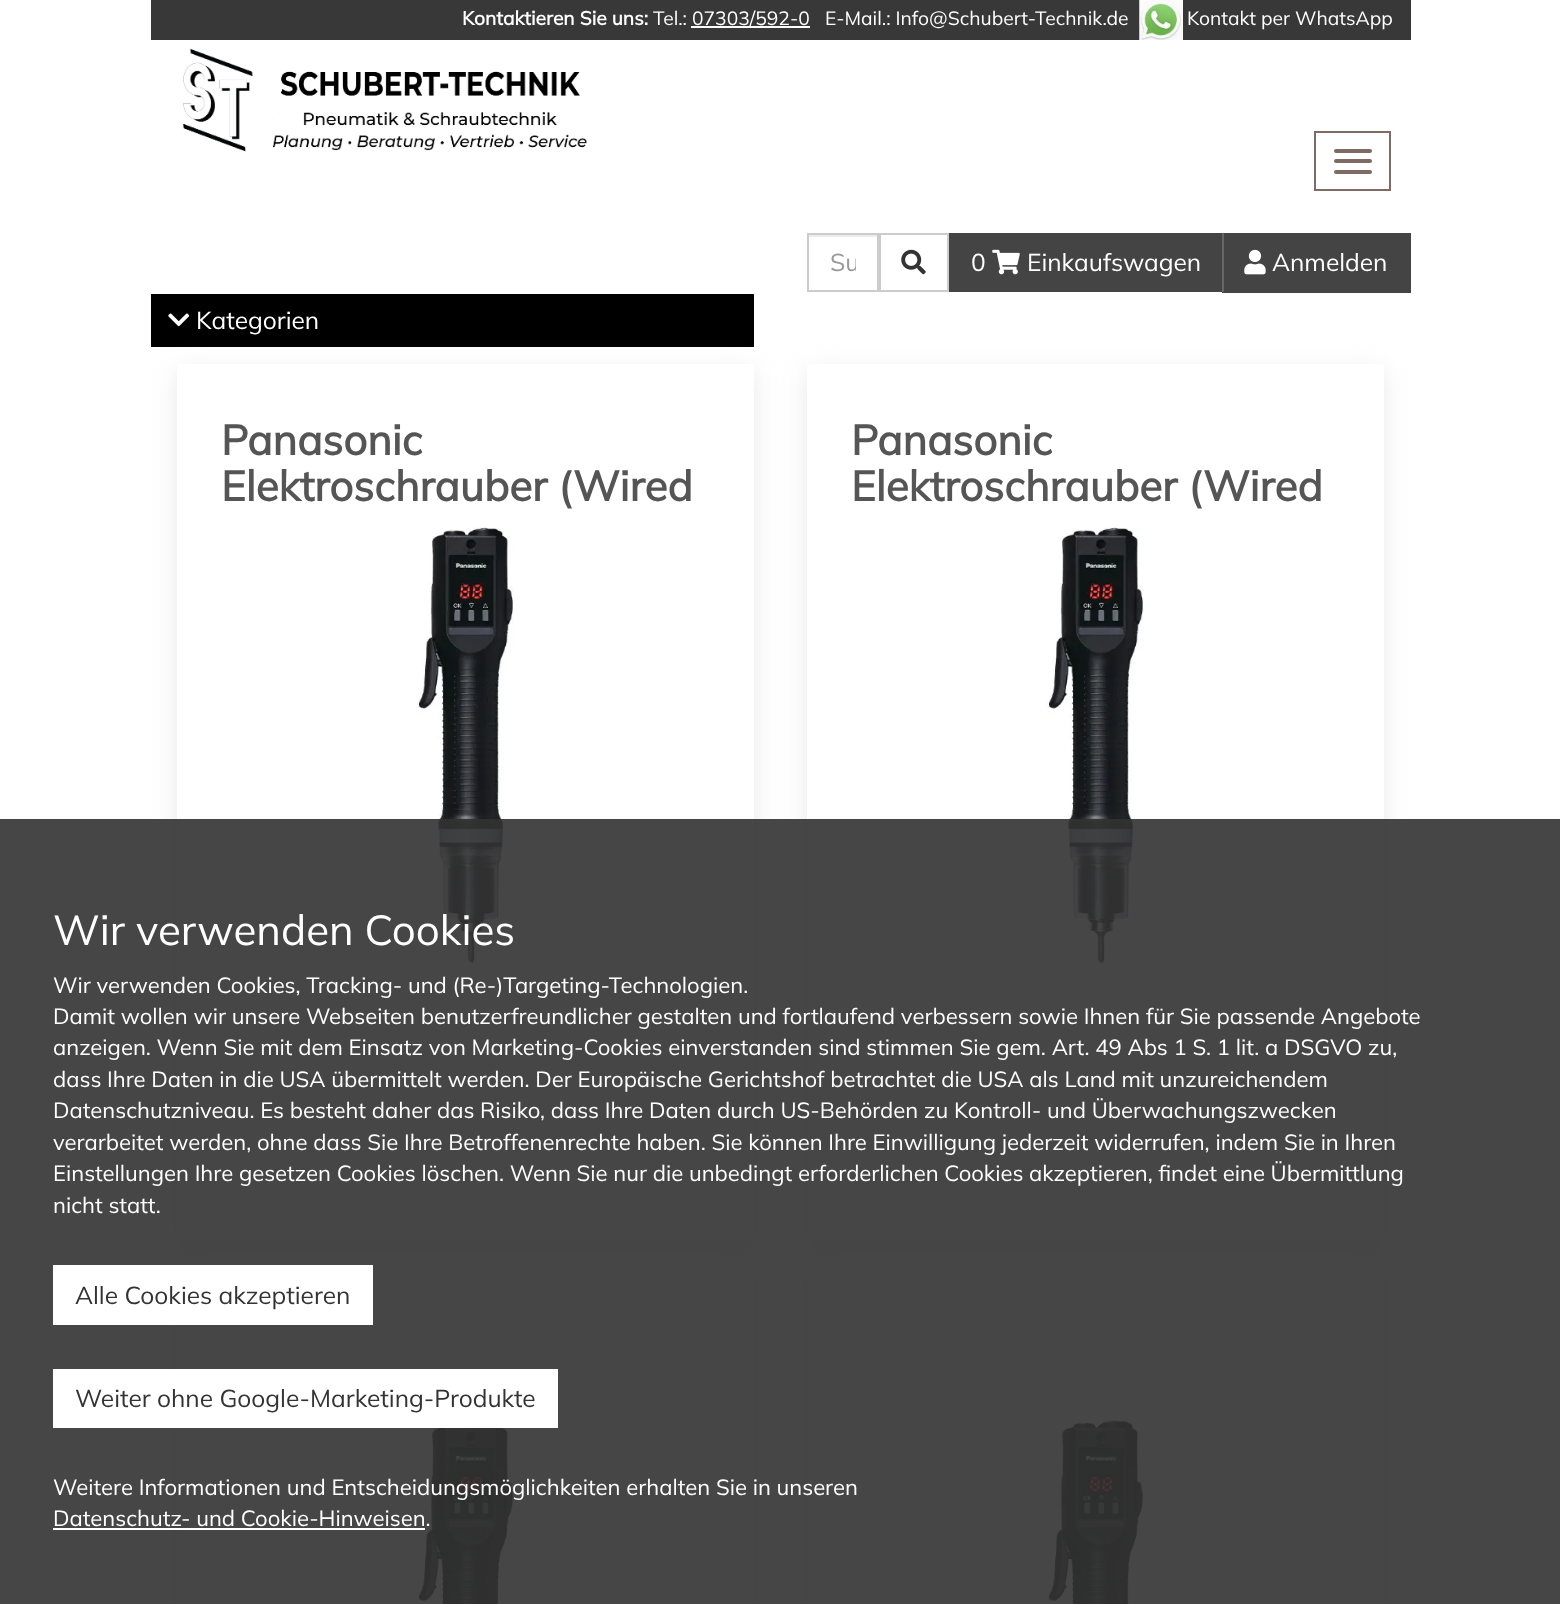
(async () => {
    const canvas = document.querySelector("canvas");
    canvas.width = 1560;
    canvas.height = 1604;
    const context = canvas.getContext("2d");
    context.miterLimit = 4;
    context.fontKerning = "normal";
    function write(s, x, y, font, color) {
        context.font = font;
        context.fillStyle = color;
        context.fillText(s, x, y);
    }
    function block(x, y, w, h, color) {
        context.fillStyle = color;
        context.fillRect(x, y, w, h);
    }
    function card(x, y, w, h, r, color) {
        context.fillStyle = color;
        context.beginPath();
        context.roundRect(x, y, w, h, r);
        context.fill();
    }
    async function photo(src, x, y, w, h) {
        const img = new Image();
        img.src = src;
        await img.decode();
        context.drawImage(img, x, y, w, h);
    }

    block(0, 0, 1560, 1604, "rgb(255, 255, 255)");
    block(151, 0, 1260, 40, "rgb(56, 56, 56)");
    write("Kontaktieren Sie uns:", 462, 25, "bold 19.25px Mulish", "rgb(255, 255, 255)");
    write("Tel.:", 653, 25, "200 19.25px Mulish", "rgb(255, 255, 255)");
    block(691, 26, 119, 2, "rgb(255, 255, 255)");
    write("07303/592-0", 692, 25, "200 19.25px Mulish", "rgb(255, 255, 255)");
    write("E-Mail.: Info@Schubert-Technik.de", 825, 25, "200 19.25px Mulish", "rgb(255, 255, 255)");
    await photo("media/1.png", 1139, 0, 44, 40);
    write("Kontakt per WhatsApp", 1187, 25, "200 19.25px Mulish", "rgb(255, 255, 255)");
    await photo("media/2.png", 182, 48, 405, 104);
    context.strokeStyle = "rgb(127, 107, 100)";
    context.lineWidth = 2;
    context.strokeRect(1315, 132, 75, 58);
    card(1334, 149, 38, 4, 2, "rgb(127, 107, 100)");
    card(1334, 159, 38, 4, 2, "rgb(127, 107, 100)");
    card(1334, 170, 38, 4, 2, "rgb(127, 107, 100)");
    block(809, 235, 68, 2, "rgb(236, 236, 236)");
    context.strokeStyle = "rgb(204, 204, 204)";
    context.strokeRect(808, 234, 70, 57);
    context.save();
    context.beginPath();
    context.rect(830, 247, 26, 31);
    context.clip();
    write("Su", 830, 271, "200 24.5px Mulish", "rgb(153, 153, 153)");
    context.restore();
    context.strokeRect(880, 234, 68, 57);
    await photo("media/3.png", 901, 249, 25, 26);
    block(949, 233, 273, 59, "rgb(68, 68, 68)");
    write("0", 971, 271, "200 24.5px Mulish", "rgb(255, 255, 255)");
    await photo("media/4.png", 992, 249, 28, 26);
    write("Einkaufswagen", 1027, 271, "200 24.5px Mulish", "rgb(255, 255, 255)");
    block(1224, 233, 187, 58, "rgb(68, 68, 68)");
    block(1222, 291, 189, 2, "rgb(68, 68, 68)");
    block(1222, 233, 2, 59, "rgb(102, 102, 102)");
    await photo("media/5.png", 1244, 249, 22, 26);
    write("Anmelden", 1272, 271, "200 24.5px Mulish", "rgb(255, 255, 255)");
    block(151, 294, 603, 53, "rgb(0, 0, 0)");
    await photo("media/6.png", 168, 313, 22, 14);
    write("Kategorien", 196, 329, "200 24.5px Mulish", "rgb(255, 255, 255)");
    context.save();
    context.beginPath();
    context.moveTo(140, 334);
    context.lineTo(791, 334);
    context.lineTo(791, 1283);
    context.lineTo(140, 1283);
    context.closePath();
    context.moveTo(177, 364);
    context.lineTo(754, 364);
    context.lineTo(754, 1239);
    context.lineTo(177, 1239);
    context.closePath();
    context.clip("evenodd");
    context.fillStyle = "rgb(232, 232, 232)";
    context.filter = "blur(12px)";
    context.beginPath();
    context.rect(177, 371, 577, 875);
    context.fill();
    context.filter = "none";
    context.restore();
    write("Panasonic", 221, 455, "bold 42px Mulish", "rgb(85, 85, 85)");
    write("Elektroschrauber (Wired", 221, 501, "bold 42px Mulish", "rgb(85, 85, 85)");
    await photo("media/7.png", 416, 527, 98, 437);
    context.save();
    context.beginPath();
    context.moveTo(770, 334);
    context.lineTo(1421, 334);
    context.lineTo(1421, 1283);
    context.lineTo(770, 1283);
    context.closePath();
    context.moveTo(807, 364);
    context.lineTo(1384, 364);
    context.lineTo(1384, 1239);
    context.lineTo(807, 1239);
    context.closePath();
    context.clip("evenodd");
    context.fillStyle = "rgb(232, 232, 232)";
    context.filter = "blur(12px)";
    context.beginPath();
    context.rect(807, 371, 577, 875);
    context.fill();
    context.filter = "none";
    context.restore();
    write("Panasonic", 851, 455, "bold 42px Mulish", "rgb(85, 85, 85)");
    write("Elektroschrauber (Wired", 851, 501, "bold 42px Mulish", "rgb(85, 85, 85)");
    await photo("media/8.png", 1046, 527, 98, 437);
    context.fillStyle = "rgb(232, 232, 232)";
    context.filter = "blur(12px)";
    context.beginPath();
    context.rect(177, 1264, 577, 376);
    context.fill();
    context.filter = "none";
    block(177, 1257, 577, 347, "rgb(255, 255, 255)");
    await photo("media/9.png", 416, 1428, 98, 176);
    context.fillStyle = "rgb(232, 232, 232)";
    context.filter = "blur(12px)";
    context.beginPath();
    context.rect(807, 1264, 577, 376);
    context.fill();
    context.filter = "none";
    block(807, 1257, 577, 347, "rgb(255, 255, 255)");
    await photo("media/10.png", 1046, 1419, 98, 185);
    block(0, 819, 1560, 785, "rgba(50, 50, 50, 0.9)");
    write("Wir verwenden Cookies", 53, 945, "200 42px Mulish", "rgb(255, 255, 255)");
    write("Wir verwenden Cookies, Tracking- und (Re-)Targeting-Technologien.", 53, 993, "200 22.05px Mulish", "rgb(255, 255, 255)");
    write("Damit wollen wir unsere Webseiten benutzerfreundlicher gestalten und fortlaufend verbessern sowie Ihnen für Sie passende Angebote", 53, 1024, "200 22.05px Mulish", "rgb(255, 255, 255)");
    write("anzeigen. Wenn Sie mit dem Einsatz von Marketing-Cookies einverstanden sind stimmen Sie gem. Art. 49 Abs 1 S. 1 lit. a DSGVO zu,", 53, 1055, "200 22.05px Mulish", "rgb(255, 255, 255)");
    write("dass Ihre Daten in die USA übermittelt werden. Der Europäische Gerichtshof betrachtet die USA als Land mit unzureichendem", 53, 1087, "200 22.05px Mulish", "rgb(255, 255, 255)");
    write("Datenschutzniveau. Es besteht daher das Risiko, dass Ihre Daten durch US-Behörden zu Kontroll- und Überwachungszwecken", 53, 1118, "200 22.05px Mulish", "rgb(255, 255, 255)");
    write("verarbeitet werden, ohne dass Sie Ihre Betroffenenrechte haben. Sie können Ihre Einwilligung jederzeit widerrufen, indem Sie in Ihren", 53, 1150, "200 22.05px Mulish", "rgb(255, 255, 255)");
    write("Einstellungen Ihre gesetzen Cookies löschen. Wenn Sie nur die unbedingt erforderlichen Cookies akzeptieren, findet eine Übermittlung", 53, 1181, "200 22.05px Mulish", "rgb(255, 255, 255)");
    write("nicht statt.", 53, 1213, "200 22.05px Mulish", "rgb(255, 255, 255)");
    block(53, 1265, 320, 60, "rgb(255, 255, 255)");
    write("Alle Cookies akzeptieren", 75, 1304, "200 24.5px Mulish", "rgb(51, 51, 51)");
    block(53, 1369, 505, 59, "rgb(255, 255, 255)");
    write("Weiter ohne Google-Marketing-Produkte", 75, 1407, "200 24.5px Mulish", "rgb(51, 51, 51)");
    write("Weitere Informationen und Entscheidungsmöglichkeiten erhalten Sie in unseren", 53, 1495, "200 22.05px Mulish", "rgb(255, 255, 255)");
    write("Datenschutz- und Cookie-Hinweisen.", 53, 1526, "200 22.05px Mulish", "rgb(255, 255, 255)");
    block(53, 1528, 372, 2, "rgb(255, 255, 255)");
})();
